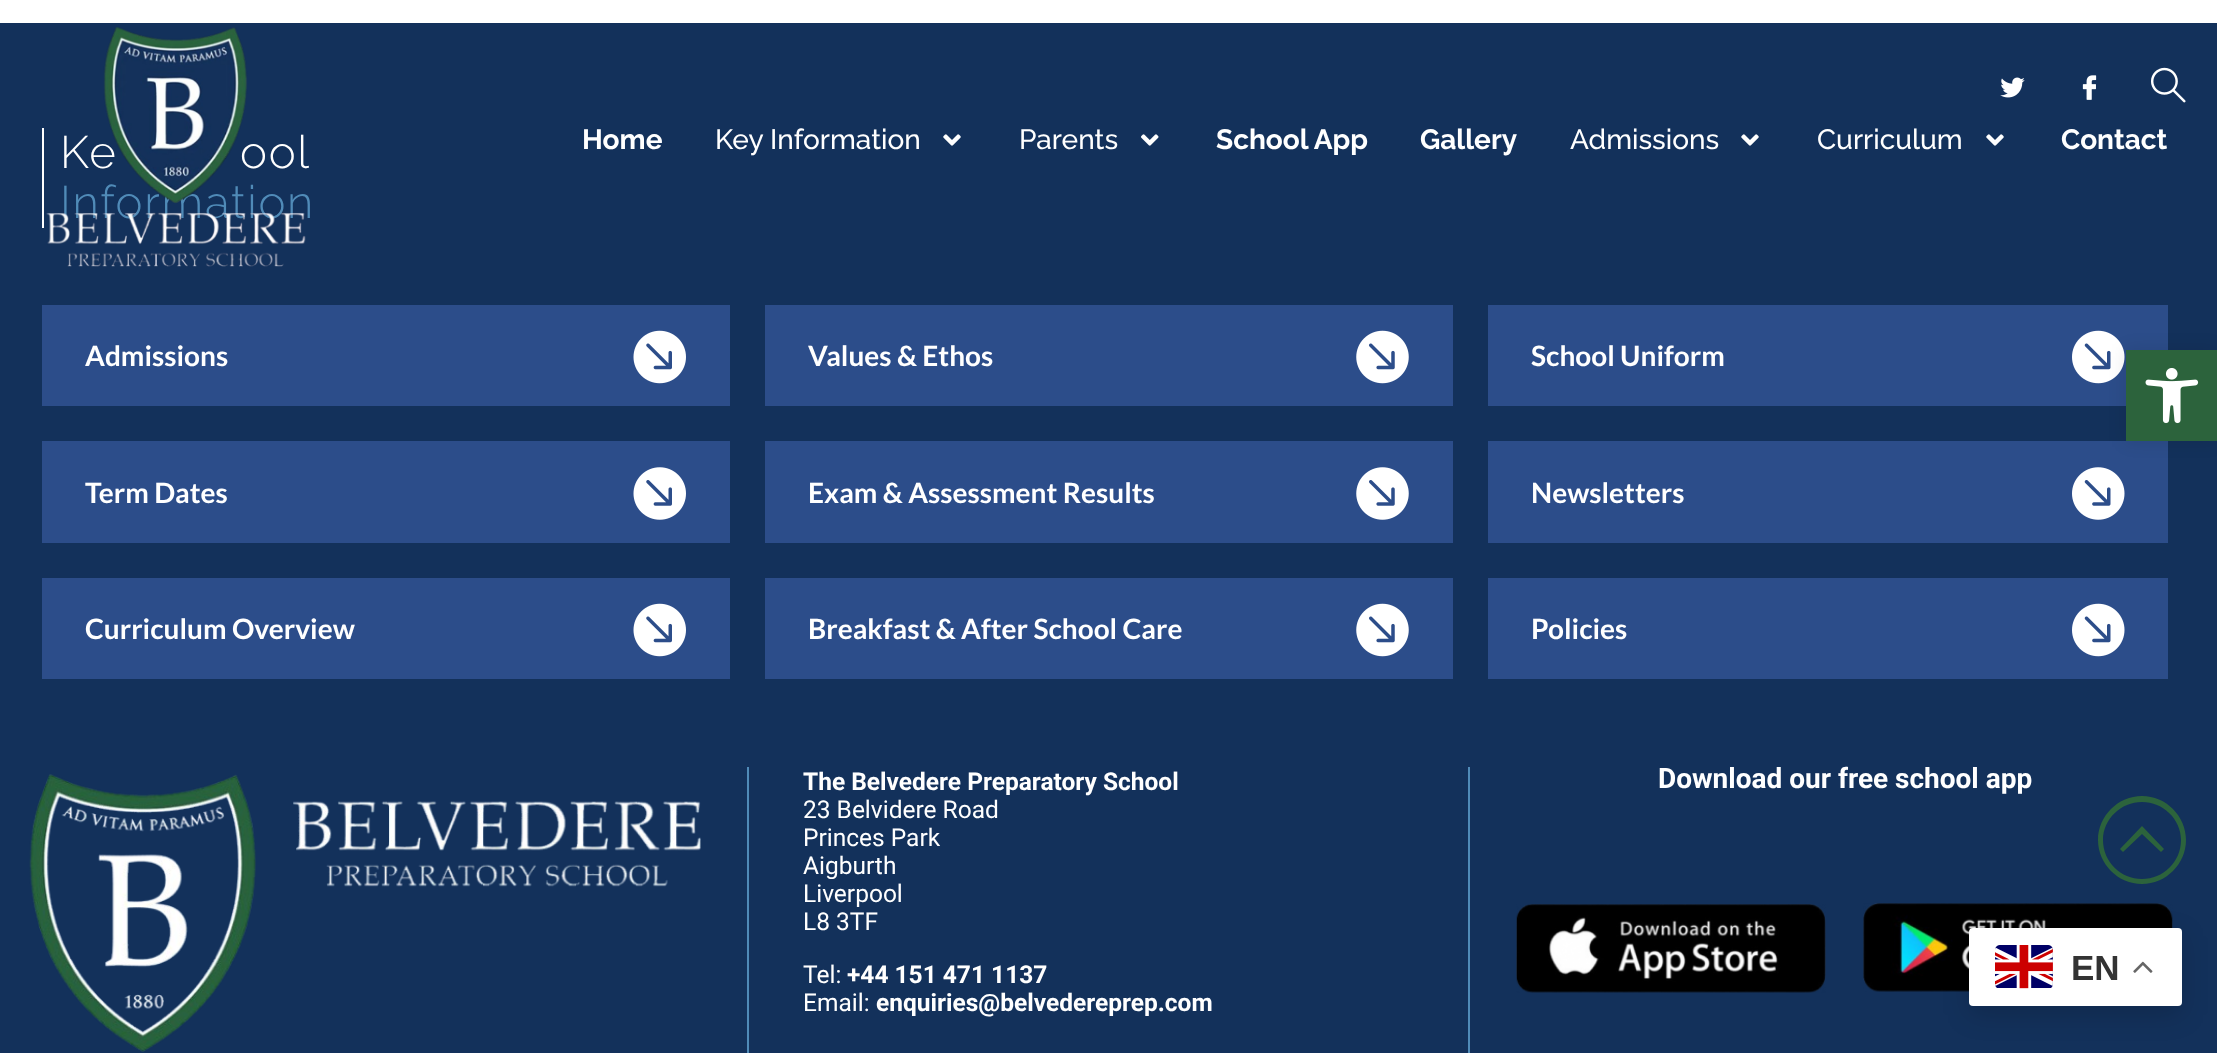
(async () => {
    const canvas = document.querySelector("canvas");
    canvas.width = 2217;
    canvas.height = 1053;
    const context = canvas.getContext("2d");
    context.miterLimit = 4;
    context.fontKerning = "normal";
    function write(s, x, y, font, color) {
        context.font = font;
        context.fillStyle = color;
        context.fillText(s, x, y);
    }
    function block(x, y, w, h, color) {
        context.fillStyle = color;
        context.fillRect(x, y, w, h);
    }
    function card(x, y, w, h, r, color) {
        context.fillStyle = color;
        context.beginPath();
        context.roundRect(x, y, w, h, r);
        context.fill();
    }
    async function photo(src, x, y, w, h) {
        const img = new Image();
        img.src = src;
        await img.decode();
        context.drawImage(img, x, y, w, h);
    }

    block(0, 0, 2217, 1053, "rgb(255, 255, 255)");
    block(0, 23, 2217, 1030, "rgb(19, 49, 91)");
    await photo("media/1.png", 2000, 77, 25, 21);
    await photo("media/2.png", 2082, 75, 15, 25);
    await photo("media/3.png", 2151, 67, 35, 36);
    context.letterSpacing = "1.75px";
    write("Ke", 60, 168, "300 45.5px Raleway", "rgb(255, 255, 255)");
    write("ool", 240, 168, "300 45.5px Raleway", "rgb(255, 255, 255)");
    write("Information", 60, 218, "300 45.5px Raleway", "rgb(80, 139, 184)");
    await photo("media/4.png", 46, 27, 260, 240);
    context.letterSpacing = "0px";
    write("Home", 582, 149, "bold 28px Raleway", "rgb(255, 255, 255)");
    write("Key Information", 715, 149, "500 28px Raleway", "rgb(255, 255, 255)");
    await photo("media/5.png", 943, 134, 18, 12);
    write("Parents", 1019, 149, "500 28px Raleway", "rgb(255, 255, 255)");
    await photo("media/6.png", 1141, 134, 18, 12);
    write("School App", 1216, 149, "bold 28px Raleway", "rgb(255, 255, 255)");
    write("Gallery", 1420, 149, "bold 28px Raleway", "rgb(255, 255, 255)");
    write("Admissions", 1570, 149, "500 28px Raleway", "rgb(255, 255, 255)");
    await photo("media/5.png", 1741, 134, 18, 12);
    write("Curriculum", 1817, 149, "500 28px Raleway", "rgb(255, 255, 255)");
    await photo("media/5.png", 1986, 134, 18, 12);
    write("Contact", 2061, 149, "bold 28px Raleway", "rgb(255, 255, 255)");
    context.fillStyle = "rgb(44, 99, 60)";
    context.beginPath();
    context.moveTo(2142, 826);
    context.lineTo(2164, 849);
    context.lineTo(2161, 852);
    context.lineTo(2142, 834);
    context.lineTo(2123, 852);
    context.lineTo(2120, 849);
    context.closePath();
    context.moveTo(2186, 840);
    context.bezierCurveTo(2186, 864, 2166, 884, 2142, 884);
    context.bezierCurveTo(2118, 884, 2098, 864, 2098, 840);
    context.bezierCurveTo(2098, 816, 2118, 796, 2142, 796);
    context.bezierCurveTo(2166, 796, 2186, 816, 2186, 840);
    context.closePath();
    context.moveTo(2181, 840);
    context.bezierCurveTo(2181, 819, 2163, 802, 2142, 802);
    context.bezierCurveTo(2121, 802, 2103, 819, 2103, 840);
    context.bezierCurveTo(2103, 862, 2121, 879, 2142, 879);
    context.bezierCurveTo(2163, 879, 2181, 862, 2181, 840);
    context.closePath();
    context.fill();
    block(42, 128, 2, 100, "rgb(255, 255, 255)");
    block(42, 305, 688, 101, "rgb(44, 77, 138)");
    write("Admissions", 85, 366, "bold 28px Lato", "rgb(255, 255, 255)");
    await photo("media/7.png", 633, 330, 53, 54);
    block(42, 441, 688, 102, "rgb(44, 77, 138)");
    write("Term Dates", 85, 503, "bold 28px Lato", "rgb(255, 255, 255)");
    await photo("media/8.png", 633, 467, 53, 53);
    block(42, 578, 688, 101, "rgb(44, 77, 138)");
    write("Curriculum Overview", 85, 639, "bold 28px Lato", "rgb(255, 255, 255)");
    await photo("media/7.png", 633, 603, 53, 54);
    block(765, 305, 688, 101, "rgb(44, 77, 138)");
    write("Values & Ethos", 808, 366, "bold 28px Lato", "rgb(255, 255, 255)");
    await photo("media/9.png", 1356, 330, 53, 54);
    block(765, 441, 688, 102, "rgb(44, 77, 138)");
    write("Exam & Assessment Results", 808, 503, "bold 28px Lato", "rgb(255, 255, 255)");
    await photo("media/10.png", 1356, 467, 53, 53);
    block(765, 578, 688, 101, "rgb(44, 77, 138)");
    write("Breakfast & After School Care", 808, 639, "bold 28px Lato", "rgb(255, 255, 255)");
    await photo("media/9.png", 1356, 603, 53, 54);
    block(1488, 305, 680, 101, "rgb(44, 77, 138)");
    write("School Uniform", 1531, 366, "bold 28px Lato", "rgb(255, 255, 255)");
    await photo("media/11.png", 2072, 330, 53, 54);
    block(1488, 441, 680, 102, "rgb(44, 77, 138)");
    write("Newsletters", 1531, 503, "bold 28px Lato", "rgb(255, 255, 255)");
    await photo("media/12.png", 2072, 467, 53, 53);
    block(1488, 578, 680, 101, "rgb(44, 77, 138)");
    write("Policies", 1531, 639, "bold 28px Lato", "rgb(255, 255, 255)");
    await photo("media/11.png", 2072, 603, 53, 54);
    await photo("media/13.png", 29, 774, 672, 278);
    block(1468, 767, 2, 286, "rgb(80, 139, 184)");
    block(747, 767, 2, 286, "rgb(80, 139, 184)");
    write("The Belvedere Preparatory School", 803, 790, "bold 24.5px Roboto", "rgb(255, 255, 255)");
    write("23 Belvidere Road", 803, 818, "24.5px Roboto", "rgb(255, 255, 255)");
    write("Princes Park", 803, 846, "24.5px Roboto", "rgb(255, 255, 255)");
    write("Aigburth", 803, 874, "24.5px Roboto", "rgb(255, 255, 255)");
    write("Liverpool", 803, 902, "24.5px Roboto", "rgb(255, 255, 255)");
    write("L8 3TF", 803, 930, "24.5px Roboto", "rgb(255, 255, 255)");
    write("Tel:", 803, 983, "24.5px Roboto", "rgb(255, 255, 255)");
    write("+44 151 471 1137", 847, 983, "bold 24.5px Roboto", "rgb(255, 255, 255)");
    write("Email:", 803, 1011, "24.5px Roboto", "rgb(255, 255, 255)");
    write("enquiries@belvedereprep.com", 876, 1011, "bold 24.5px Roboto", "rgb(255, 255, 255)");
    write("Download our free school app", 1658, 788, "bold 28px Roboto", "rgb(255, 255, 255)");
    await photo("media/14.png", 1516, 904, 310, 89);
    await photo("media/15.png", 1863, 903, 310, 89);
    context.fillStyle = "rgba(0, 0, 0, 0.1)";
    context.filter = "blur(9px)";
    context.beginPath();
    context.rect(2126, 350, 91, 91);
    context.fill();
    context.filter = "none";
    block(2126, 350, 91, 91, "rgb(44, 99, 60)");
    await photo("media/16.png", 2145, 368, 54, 56);
    context.fillStyle = "rgba(0, 0, 0, 0.15)";
    context.filter = "blur(13px)";
    context.beginPath();
    context.roundRect(1969, 936, 213, 79, 4);
    context.fill();
    context.filter = "none";
    card(1969, 928, 213, 78, 4, "rgb(255, 255, 255)");
    await photo("media/17.png", 1995, 945, 58, 44);
    write("EN", 2071, 980, "bold 35px Liberation Sans", "rgb(51, 51, 51)");
    await photo("media/18.png", 2133, 961, 20, 12);
})();
